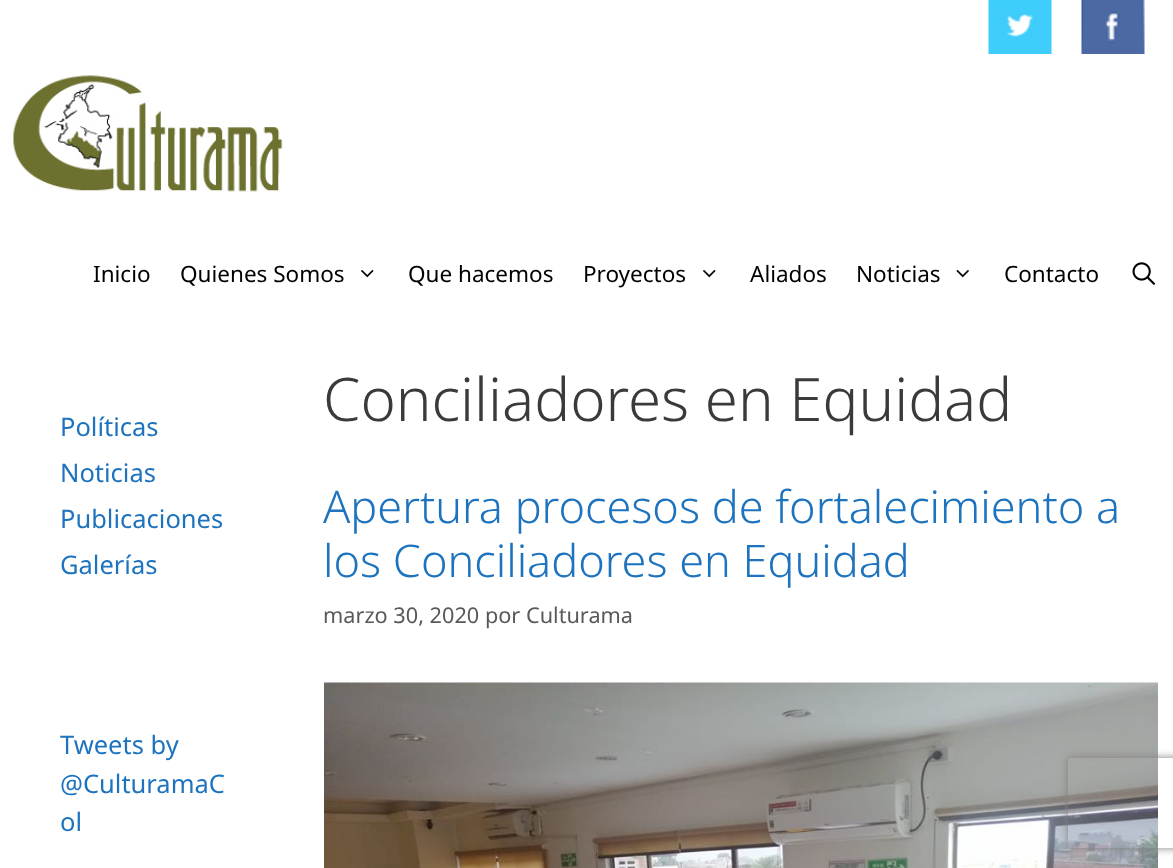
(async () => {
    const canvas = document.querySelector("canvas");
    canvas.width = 1173;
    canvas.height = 868;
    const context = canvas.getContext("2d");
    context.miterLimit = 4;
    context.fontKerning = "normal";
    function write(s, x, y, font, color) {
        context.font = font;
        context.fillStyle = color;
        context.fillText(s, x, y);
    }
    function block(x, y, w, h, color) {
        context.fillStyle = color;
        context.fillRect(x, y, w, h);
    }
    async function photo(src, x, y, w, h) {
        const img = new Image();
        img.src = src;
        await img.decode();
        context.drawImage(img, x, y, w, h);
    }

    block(0, 0, 1173, 868, "rgb(255, 255, 255)");
    await photo("media/1.png", 988, 0, 64, 54);
    await photo("media/2.png", 1081, 0, 64, 54);
    await photo("media/3.png", 13, 75, 270, 117);
    write("Inicio", 93, 282, "22.5px Noto Sans", "rgb(0, 0, 0)");
    write("Quienes Somos", 180, 282, "22.5px Noto Sans", "rgb(0, 0, 0)");
    await photo("media/4.png", 361, 270, 13, 8);
    write("Que hacemos", 408, 282, "22.5px Noto Sans", "rgb(0, 0, 0)");
    write("Proyectos", 583, 282, "22.5px Noto Sans", "rgb(0, 0, 0)");
    await photo("media/4.png", 703, 270, 13, 8);
    write("Aliados", 750, 282, "22.5px Noto Sans", "rgb(0, 0, 0)");
    write("Noticias", 856, 282, "22.5px Noto Sans", "rgb(0, 0, 0)");
    await photo("media/5.png", 956, 270, 13, 8);
    write("Contacto", 1004, 282, "22.5px Noto Sans", "rgb(0, 0, 0)");
    await photo("media/6.png", 1132, 262, 23, 23);
    write("Políticas", 60, 436, "25.5px Noto Sans", "rgb(30, 115, 190)");
    write("Noticias", 60, 482, "25.5px Noto Sans", "rgb(30, 115, 190)");
    write("Publicaciones", 60, 528, "25.5px Noto Sans", "rgb(30, 115, 190)");
    write("Galerías", 60, 574, "25.5px Noto Sans", "rgb(30, 115, 190)");
    write("Tweets by", 60, 754, "25.5px Noto Sans", "rgb(30, 115, 190)");
    write("@CulturamaC", 60, 793, "25.5px Noto Sans", "rgb(30, 115, 190)");
    write("ol", 60, 831, "25.5px Noto Sans", "rgb(30, 115, 190)");
    write("Conciliadores en Equidad", 323, 421, "300 60px Noto Sans", "rgb(58, 58, 58)");
    write("Apertura procesos de fortalecimiento a", 323, 523, "300 45px Noto Sans", "rgb(30, 115, 190)");
    write("los Conciliadores en Equidad", 323, 577, "300 45px Noto Sans", "rgb(30, 115, 190)");
    write("marzo 30, 2020 por Culturama", 323, 623, "21.7px Noto Sans", "rgb(89, 89, 89)");
    await photo("media/7.png", 324, 682, 834, 186);
    context.save();
    context.beginPath();
    context.moveTo(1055, 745);
    context.lineTo(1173, 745);
    context.lineTo(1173, 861);
    context.lineTo(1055, 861);
    context.closePath();
    context.moveTo(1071, 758);
    context.lineTo(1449, 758);
    context.bezierCurveTo(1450.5, 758, 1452, 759.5, 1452, 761);
    context.lineTo(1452, 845);
    context.bezierCurveTo(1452, 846.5, 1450.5, 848, 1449, 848);
    context.lineTo(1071, 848);
    context.bezierCurveTo(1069.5, 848, 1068, 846.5, 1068, 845);
    context.lineTo(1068, 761);
    context.bezierCurveTo(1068, 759.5, 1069.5, 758, 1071, 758);
    context.closePath();
    context.clip("evenodd");
    context.fillStyle = "rgb(128, 128, 128)";
    context.filter = "blur(4px)";
    context.beginPath();
    context.roundRect(1068, 758, 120, 90, 3);
    context.fill();
    context.filter = "none";
    context.restore();
})();
